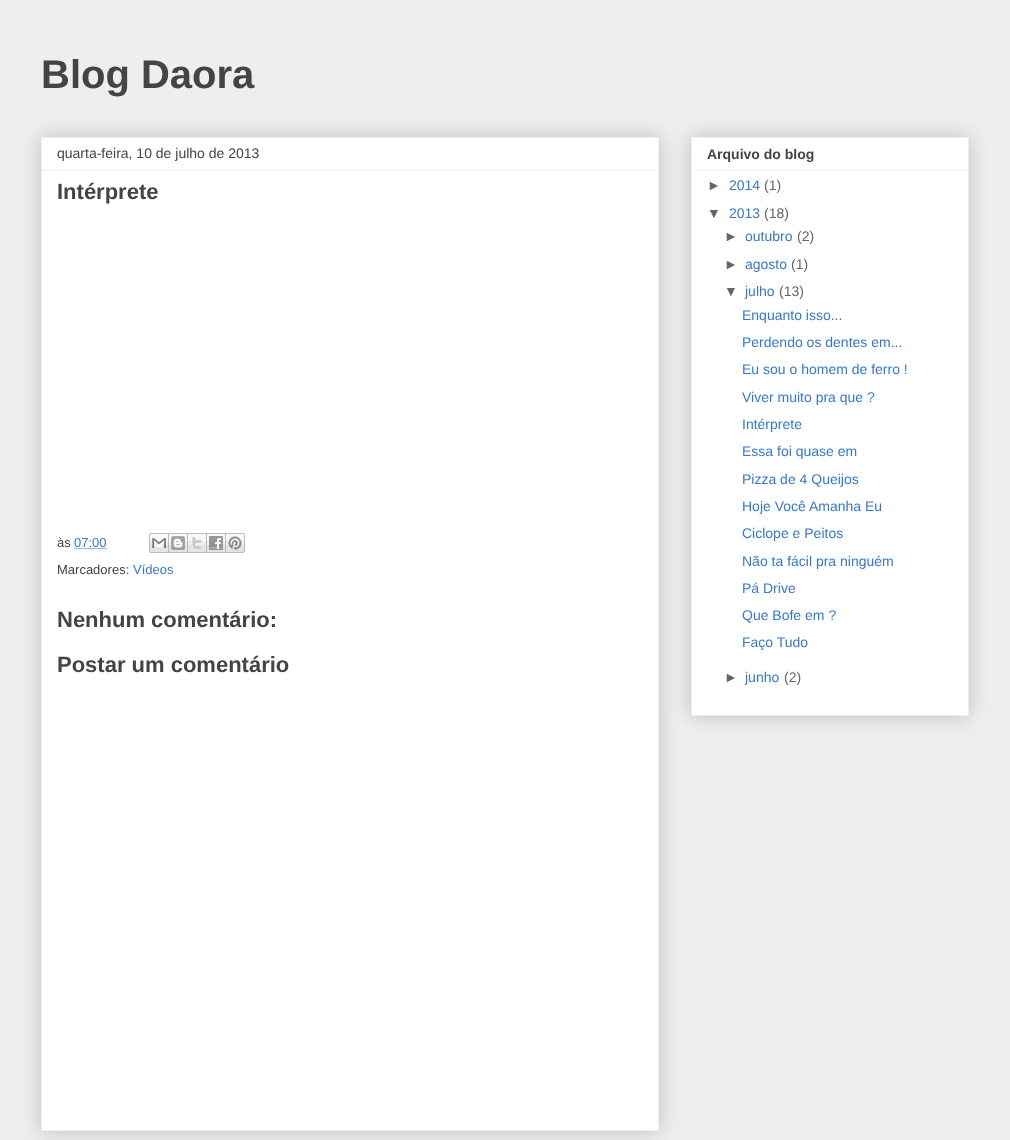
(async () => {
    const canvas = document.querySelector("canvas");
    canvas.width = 1010;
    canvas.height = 1140;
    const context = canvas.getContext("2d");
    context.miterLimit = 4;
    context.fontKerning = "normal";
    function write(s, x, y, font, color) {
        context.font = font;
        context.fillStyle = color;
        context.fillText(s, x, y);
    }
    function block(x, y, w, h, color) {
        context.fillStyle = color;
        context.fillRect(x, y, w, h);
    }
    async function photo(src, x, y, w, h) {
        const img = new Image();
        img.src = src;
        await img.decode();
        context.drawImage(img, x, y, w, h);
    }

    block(0, 0, 1010, 1140, "rgb(238, 238, 238)");
    write("Blog Daora", 41, 88, "bold 40px Liberation Sans", "rgb(68, 68, 68)");
    context.fillStyle = "rgba(0, 0, 0, 0.2)";
    context.filter = "blur(10px)";
    context.beginPath();
    context.rect(41, 137, 618, 994);
    context.fill();
    context.filter = "none";
    context.fillStyle = "rgb(255, 255, 255)";
    context.beginPath();
    context.rect(41.5, 137.5, 617, 993);
    context.fill();
    context.strokeStyle = "rgb(238, 238, 238)";
    context.stroke();
    write("quarta-feira, 10 de julho de 2013", 57, 158, "14px Liberation Sans", "rgb(68, 68, 68)");
    block(42, 170, 616, 1, "rgb(238, 238, 238)");
    write("Intérprete", 57, 199, "bold 22px Liberation Sans", "rgb(68, 68, 68)");
    write("às", 57, 547, "13px Liberation Sans", "rgb(68, 68, 68)");
    write("07:00", 74, 547, "13px Liberation Sans", "rgb(55, 120, 205)");
    context.beginPath();
    context.moveTo(74.5, 548.5);
    context.lineTo(107, 548.5);
    context.strokeStyle = "rgb(55, 120, 205)";
    context.setLineDash([1, 1]);
    context.stroke();
    await photo("media/1.png", 149, 533, 20, 20);
    await photo("media/2.png", 169, 533, 19, 20);
    await photo("media/3.png", 188, 533, 19, 20);
    await photo("media/4.png", 207, 533, 19, 20);
    await photo("media/5.png", 226, 533, 19, 20);
    write("Marcadores:", 57, 574, "13px Liberation Sans", "rgb(68, 68, 68)");
    write("Vídeos", 133, 574, "13px Liberation Sans", "rgb(55, 120, 205)");
    write("Nenhum comentário:", 57, 627, "bold 22px Liberation Sans", "rgb(68, 68, 68)");
    write("Postar um comentário", 57, 672, "bold 22px Liberation Sans", "rgb(68, 68, 68)");
    context.fillStyle = "rgba(0, 0, 0, 0.2)";
    context.filter = "blur(10px)";
    context.beginPath();
    context.rect(691, 137, 278, 579);
    context.fill();
    context.filter = "none";
    context.fillStyle = "rgb(255, 255, 255)";
    context.beginPath();
    context.rect(691.5, 137.5, 277, 578);
    context.fill();
    context.strokeStyle = "rgb(238, 238, 238)";
    context.setLineDash([]);
    context.stroke();
    write("Arquivo do blog", 707, 159, "bold 14px Liberation Sans", "rgb(68, 68, 68)");
    block(692, 170, 276, 1, "rgb(238, 238, 238)");
    write("►", 707, 190, "14px Liberation Sans", "rgb(102, 102, 102)");
    write("2014", 729, 190, "14px Liberation Sans", "rgb(55, 120, 205)");
    write("(1)", 764, 190, "14px Liberation Sans", "rgb(102, 102, 102)");
    write("▼", 707, 218, "14px Liberation Sans", "rgb(102, 102, 102)");
    write("2013", 729, 218, "14px Liberation Sans", "rgb(55, 120, 205)");
    write("(18)", 764, 218, "14px Liberation Sans", "rgb(102, 102, 102)");
    write("►", 724, 241, "14px Liberation Sans", "rgb(102, 102, 102)");
    write("outubro", 745, 241, "14px Liberation Sans", "rgb(55, 120, 205)");
    write("(2)", 797, 241, "14px Liberation Sans", "rgb(102, 102, 102)");
    write("►", 724, 269, "14px Liberation Sans", "rgb(102, 102, 102)");
    write("agosto", 745, 269, "14px Liberation Sans", "rgb(55, 120, 205)");
    write("(1)", 791, 269, "14px Liberation Sans", "rgb(102, 102, 102)");
    write("▼", 724, 296, "14px Liberation Sans", "rgb(102, 102, 102)");
    write("julho", 745, 296, "14px Liberation Sans", "rgb(55, 120, 205)");
    write("(13)", 779, 296, "14px Liberation Sans", "rgb(102, 102, 102)");
    write("Enquanto isso...", 742, 320, "14px Liberation Sans", "rgb(55, 120, 205)");
    write("Perdendo os dentes em...", 742, 347, "14px Liberation Sans", "rgb(55, 120, 205)");
    write("Eu sou o homem de ferro !", 742, 374, "14px Liberation Sans", "rgb(55, 120, 205)");
    write("Viver muito pra que ?", 742, 402, "14px Liberation Sans", "rgb(55, 120, 205)");
    write("Intérprete", 742, 429, "14px Liberation Sans", "rgb(55, 120, 205)");
    write("Essa foi quase em", 742, 456, "14px Liberation Sans", "rgb(55, 120, 205)");
    write("Pizza de 4 Queijos", 742, 484, "14px Liberation Sans", "rgb(55, 120, 205)");
    write("Hoje Você Amanha Eu", 742, 511, "14px Liberation Sans", "rgb(55, 120, 205)");
    write("Ciclope e Peitos", 742, 538, "14px Liberation Sans", "rgb(55, 120, 205)");
    write("Não ta fácil pra ninguém", 742, 566, "14px Liberation Sans", "rgb(55, 120, 205)");
    write("Pá Drive", 742, 593, "14px Liberation Sans", "rgb(55, 120, 205)");
    write("Que Bofe em ?", 742, 620, "14px Liberation Sans", "rgb(55, 120, 205)");
    write("Faço Tudo", 742, 647, "14px Liberation Sans", "rgb(55, 120, 205)");
    write("►", 724, 682, "14px Liberation Sans", "rgb(102, 102, 102)");
    write("junho", 745, 682, "14px Liberation Sans", "rgb(55, 120, 205)");
    write("(2)", 784, 682, "14px Liberation Sans", "rgb(102, 102, 102)");
})();
